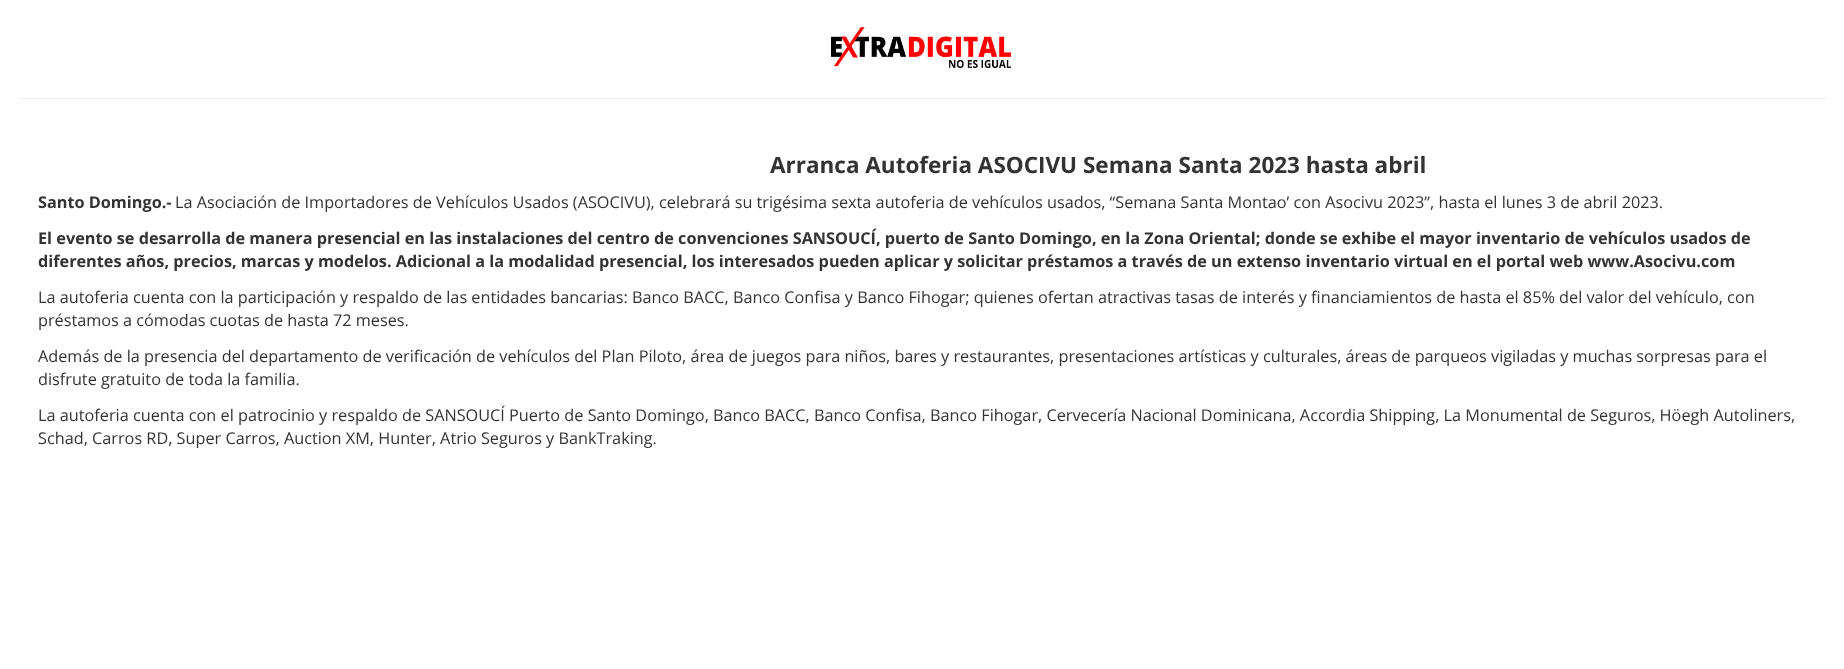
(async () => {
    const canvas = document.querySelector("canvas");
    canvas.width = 1844;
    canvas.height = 669;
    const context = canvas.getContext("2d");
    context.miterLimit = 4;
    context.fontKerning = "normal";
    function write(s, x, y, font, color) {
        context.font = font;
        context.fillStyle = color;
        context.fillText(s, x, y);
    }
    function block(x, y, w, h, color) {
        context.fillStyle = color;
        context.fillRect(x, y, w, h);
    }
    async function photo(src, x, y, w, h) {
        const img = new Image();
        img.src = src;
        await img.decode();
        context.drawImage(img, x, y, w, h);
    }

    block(0, 0, 1844, 669, "rgb(255, 255, 255)");
    await photo("media/1.png", 831, 25, 182, 45);
    block(19, 98, 1807, 1, "rgb(238, 238, 238)");
    write("Arranca Autoferia ASOCIVU Semana Santa 2023 hasta abril", 770, 173, "bold 22.5px Open Sans", "rgb(51, 51, 51)");
    write("Santo Domingo.-", 38, 208, "bold 16.25px Open Sans", "rgb(51, 51, 51)");
    write("La Asociación de Importadores de Vehículos Usados (ASOCIVU), celebrará su trigésima sexta autoferia de vehículos usados, “Semana Santa Montao’ con Asocivu 2023”, hasta el lunes 3 de abril 2023.", 175, 208, "16.25px Open Sans", "rgb(51, 51, 51)");
    write("El evento se desarrolla de manera presencial en las instalaciones del centro de convenciones SANSOUCÍ, puerto de Santo Domingo, en la Zona Oriental; donde se exhibe el mayor inventario de vehículos usados de", 38, 244, "bold 16.25px Open Sans", "rgb(51, 51, 51)");
    write("diferentes años, precios, marcas y modelos. Adicional a la modalidad presencial, los interesados pueden aplicar y solicitar préstamos a través de un extenso inventario virtual en el portal web www.Asocivu.com", 38, 267, "bold 16.25px Open Sans", "rgb(51, 51, 51)");
    write("La autoferia cuenta con la participación y respaldo de las entidades bancarias: Banco BACC, Banco Confisa y Banco Fihogar; quienes ofertan atractivas tasas de interés y financiamientos de hasta el 85% del valor del vehículo, con", 38, 303, "16.25px Open Sans", "rgb(51, 51, 51)");
    write("préstamos a cómodas cuotas de hasta 72 meses.", 38, 326, "16.25px Open Sans", "rgb(51, 51, 51)");
    write("Además de la presencia del departamento de verificación de vehículos del Plan Piloto, área de juegos para niños, bares y restaurantes, presentaciones artísticas y culturales, áreas de parqueos vigiladas y muchas sorpresas para el", 38, 362, "16.25px Open Sans", "rgb(51, 51, 51)");
    write("disfrute gratuito de toda la familia.", 38, 385, "16.25px Open Sans", "rgb(51, 51, 51)");
    write("La autoferia cuenta con el patrocinio y respaldo de SANSOUCÍ Puerto de Santo Domingo, Banco BACC, Banco Confisa, Banco Fihogar, Cervecería Nacional Dominicana, Accordia Shipping, La Monumental de Seguros, Höegh Autoliners,", 38, 421, "16.25px Open Sans", "rgb(51, 51, 51)");
    write("Schad, Carros RD, Super Carros, Auction XM, Hunter, Atrio Seguros y BankTraking.", 38, 444, "16.25px Open Sans", "rgb(51, 51, 51)");
})();
